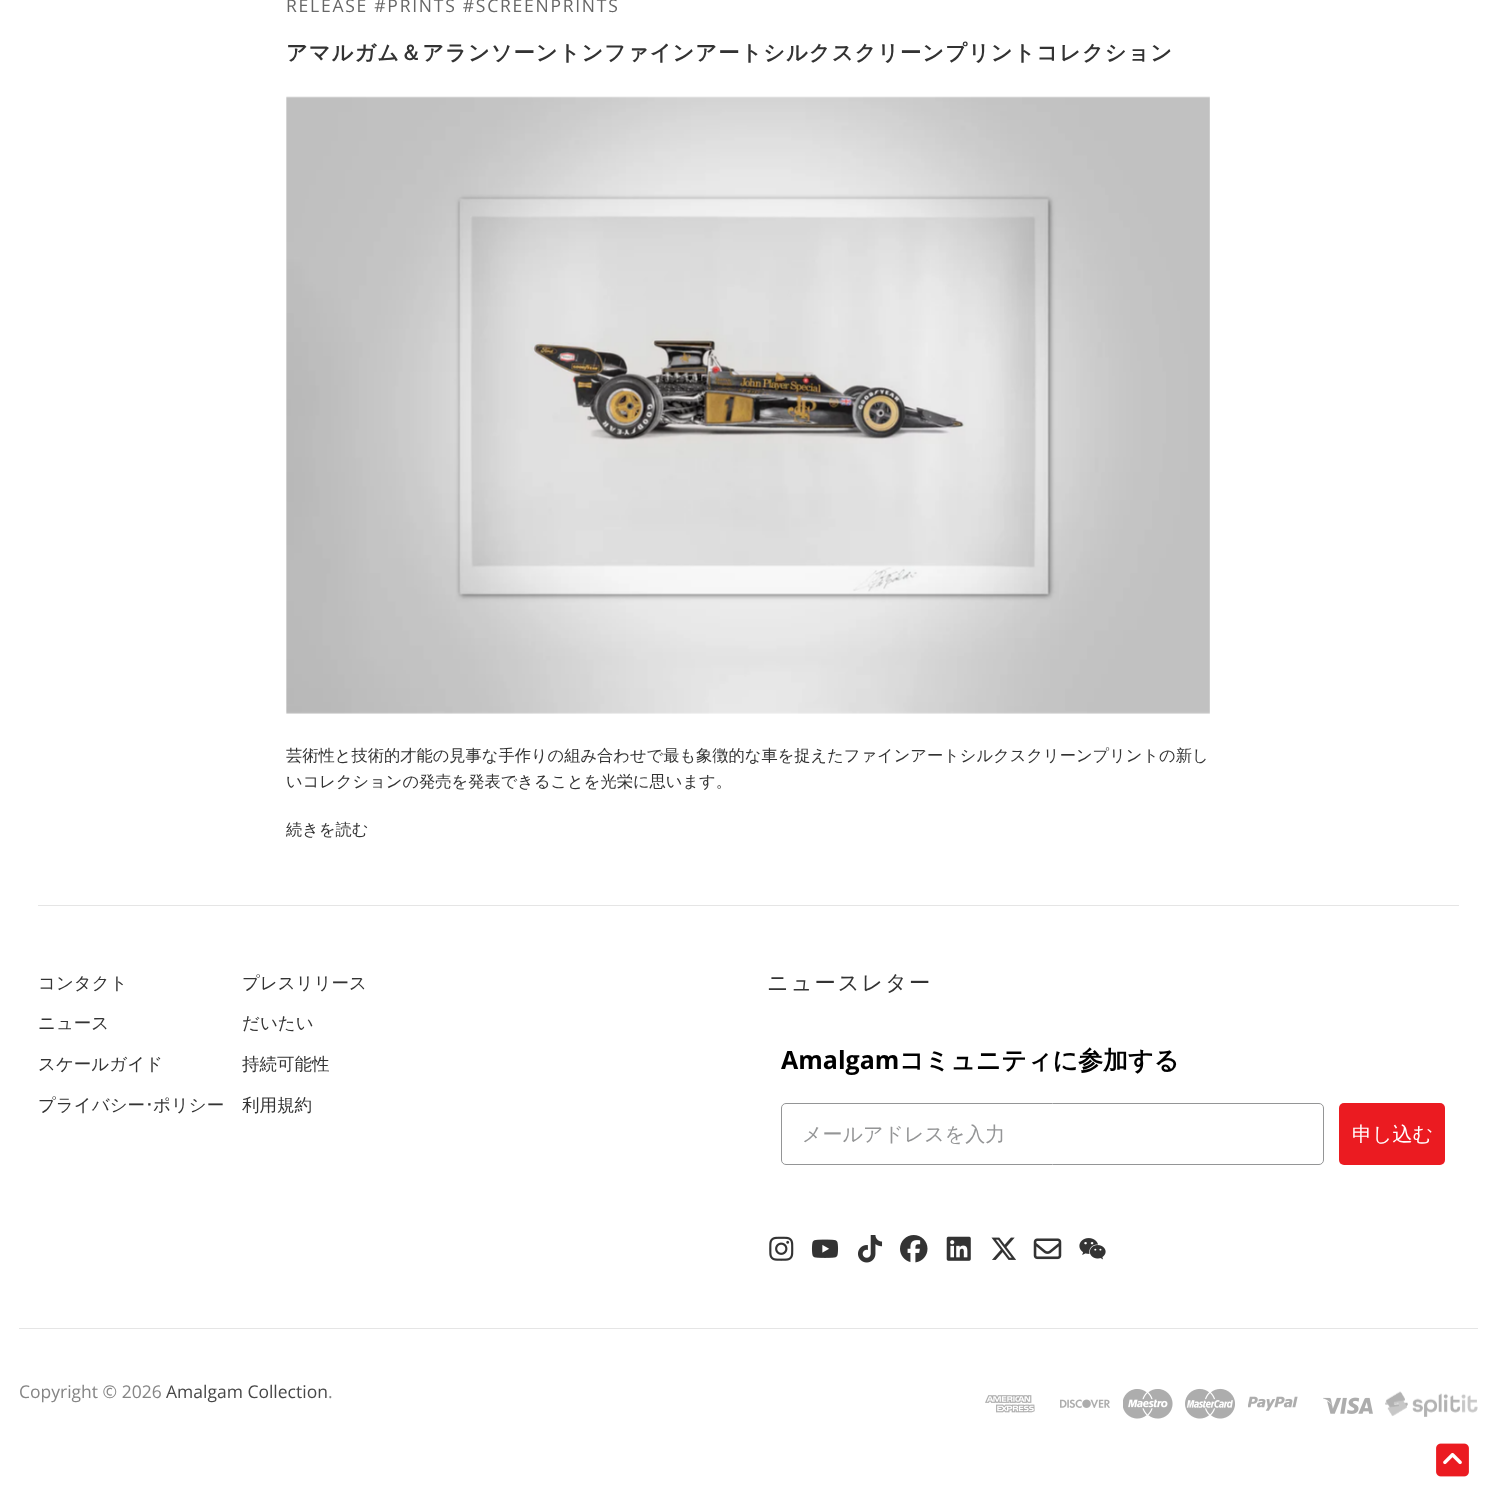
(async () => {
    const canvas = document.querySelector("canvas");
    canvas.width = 1496;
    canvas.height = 1503;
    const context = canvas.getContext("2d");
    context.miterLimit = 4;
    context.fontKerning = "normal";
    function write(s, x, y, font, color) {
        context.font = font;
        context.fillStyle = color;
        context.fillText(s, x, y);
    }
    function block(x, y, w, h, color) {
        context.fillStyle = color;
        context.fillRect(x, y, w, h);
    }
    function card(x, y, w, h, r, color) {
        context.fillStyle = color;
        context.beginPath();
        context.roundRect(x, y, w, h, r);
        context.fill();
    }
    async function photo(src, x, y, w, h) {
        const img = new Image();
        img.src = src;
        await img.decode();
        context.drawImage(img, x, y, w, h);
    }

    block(0, 0, 1496, 1503, "rgb(255, 255, 255)");
    context.letterSpacing = "1.75px";
    write("RELEASE #PRINTS #SCREENPRINTS", 286, 12, "17.5px Open Sans", "rgb(102, 102, 102)");
    context.letterSpacing = "1.05px";
    write("アマルガム＆アランソーントンファインアートシルクスクリーンプリントコレクション", 286, 60, "bold 21.25px WenQuanYi Zen Hei", "rgb(51, 51, 51)");
    await photo("media/1.png", 286, 96, 924, 618);
    context.letterSpacing = "0px";
    write("芸術性と技術的才能の見事な手作りの組み合わせで最も象徴的な車を捉えたファインアートシルクスクリーンプリントの新し", 286, 761, "500 16.25px WenQuanYi Zen Hei", "rgb(51, 51, 51)");
    write("いコレクションの発売を発表できることを光栄に思います。", 286, 787, "500 16.25px WenQuanYi Zen Hei", "rgb(51, 51, 51)");
    write("続きを読む", 286, 835, "500 16.25px WenQuanYi Zen Hei", "rgb(51, 51, 51)");
    block(38, 905, 1421, 1, "rgb(229, 229, 229)");
    write("コンタクト", 38, 989, "500 17.5px WenQuanYi Zen Hei", "rgb(51, 51, 51)");
    write("プレスリリース", 242, 989, "500 17.5px WenQuanYi Zen Hei", "rgb(51, 51, 51)");
    write("ニュース", 38, 1029, "500 17.5px WenQuanYi Zen Hei", "rgb(51, 51, 51)");
    write("だいたい", 242, 1029, "500 17.5px WenQuanYi Zen Hei", "rgb(51, 51, 51)");
    write("スケールガイド", 38, 1070, "500 17.5px WenQuanYi Zen Hei", "rgb(51, 51, 51)");
    write("持続可能性", 242, 1070, "500 17.5px WenQuanYi Zen Hei", "rgb(51, 51, 51)");
    write("プライバシー", 38, 1111, "500 17.5px WenQuanYi Zen Hei", "rgb(51, 51, 51)");
    write("･", 145, 1111, "17.5px IPAGothic", "rgb(51, 51, 51)");
    write("ポリシー", 153, 1111, "500 17.5px WenQuanYi Zen Hei", "rgb(51, 51, 51)");
    write("利用規約", 242, 1111, "500 17.5px WenQuanYi Zen Hei", "rgb(51, 51, 51)");
    context.letterSpacing = "2px";
    write("ニュースレター", 767, 990, "500 21.25px WenQuanYi Zen Hei", "rgb(51, 51, 51)");
    context.letterSpacing = "0px";
    write("Amalgam", 781, 1069, "bold 25px Open Sans", "rgb(0, 0, 0)");
    write("コミュニティに参加する", 899, 1069, "bold 25px WenQuanYi Zen Hei", "rgb(0, 0, 0)");
    context.beginPath();
    context.roundRect(781.5, 1103.5, 542, 61, 4.5);
    context.strokeStyle = "rgb(148, 149, 150)";
    context.stroke();
    write("メールアドレスを入力", 802, 1141, "500 20px WenQuanYi Zen Hei", "rgb(148, 149, 150)");
    card(1339, 1103, 106, 62, 5, "rgb(235, 27, 33)");
    write("申し込む", 1352, 1141, "500 20px WenQuanYi Zen Hei", "rgb(255, 255, 255)");
    await photo("media/2.png", 769, 1236, 25, 25);
    await photo("media/3.png", 811, 1239, 28, 19);
    await photo("media/4.png", 858, 1235, 25, 28);
    await photo("media/5.png", 900, 1235, 28, 28);
    await photo("media/6.png", 946, 1236, 25, 25);
    await photo("media/7.png", 991, 1237, 25, 23);
    await photo("media/8.png", 1033, 1238, 29, 22);
    await photo("media/9.png", 1079, 1238, 27, 22);
    block(19, 1328, 1459, 1, "rgb(229, 229, 229)");
    write("Copyright © 2026", 19, 1398, "17.5px Open Sans", "rgb(133, 133, 133)");
    write("Amalgam Collection", 166, 1398, "17.5px Open Sans", "rgb(71, 71, 71)");
    write(".", 328, 1398, "17.5px Open Sans", "rgb(133, 133, 133)");
    await photo("media/10.png", 985, 1395, 50, 18);
    await photo("media/11.png", 1060, 1399, 50, 9);
    await photo("media/12.png", 1123, 1389, 50, 30);
    await photo("media/13.png", 1185, 1388, 50, 31);
    await photo("media/14.png", 1248, 1396, 50, 15);
    await photo("media/15.png", 1323, 1397, 50, 17);
    await photo("media/16.png", 1385, 1391, 93, 26);
    await photo("media/17.png", 1436, 1443, 33, 34);
})();
